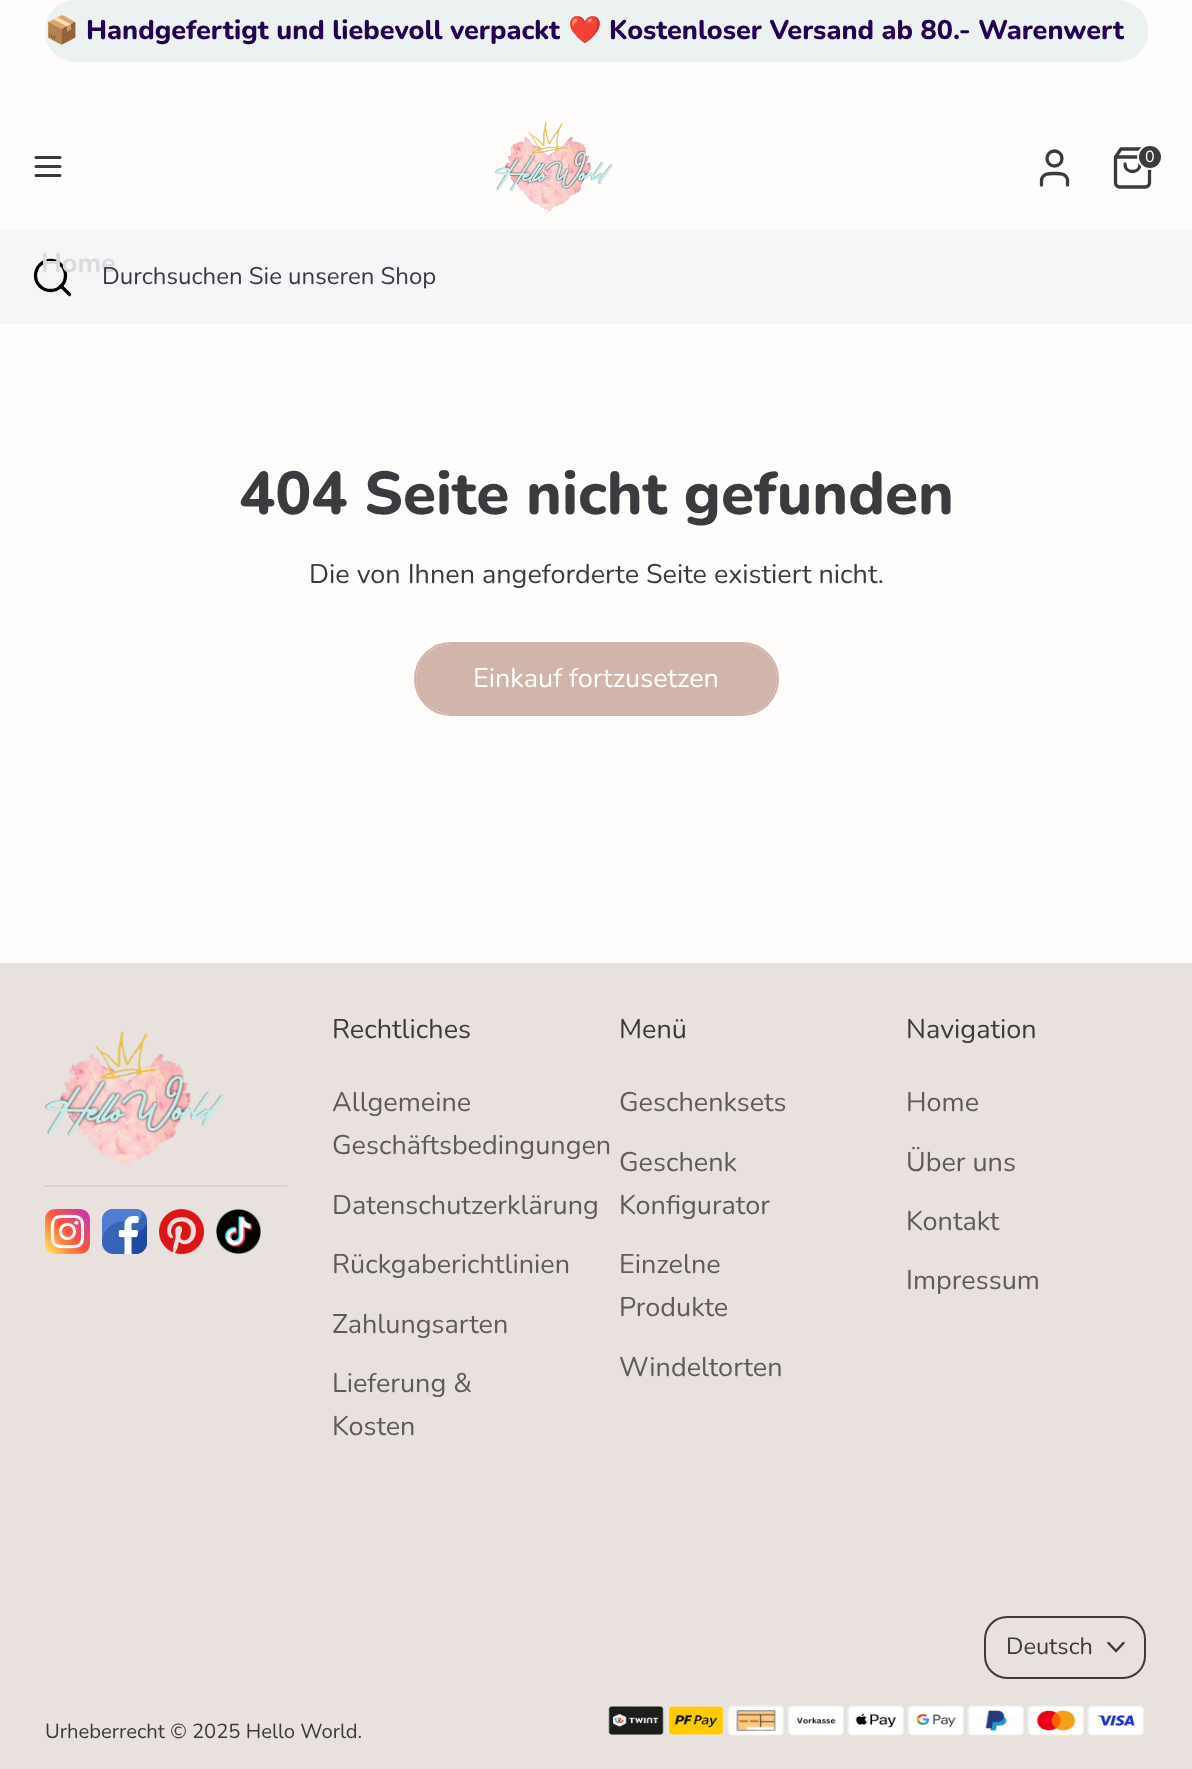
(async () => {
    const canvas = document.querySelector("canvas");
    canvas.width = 1192;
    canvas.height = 1769;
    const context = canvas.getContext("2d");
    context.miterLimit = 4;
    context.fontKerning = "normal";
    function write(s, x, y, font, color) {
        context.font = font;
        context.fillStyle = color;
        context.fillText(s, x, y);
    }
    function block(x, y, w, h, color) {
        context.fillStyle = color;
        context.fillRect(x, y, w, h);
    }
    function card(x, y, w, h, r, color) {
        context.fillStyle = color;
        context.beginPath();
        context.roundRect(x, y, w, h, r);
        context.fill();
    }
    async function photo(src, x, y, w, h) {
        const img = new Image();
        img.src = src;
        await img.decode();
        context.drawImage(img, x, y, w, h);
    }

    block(0, 0, 1192, 1769, "rgb(255, 253, 252)");
    card(45, 0, 1103, 62, 30, "rgb(236, 241, 242)");
    context.save();
    context.beginPath();
    context.roundRect(45, 0, 1103, 62, 30);
    context.clip();
    write("📦", 45, 39, "bold 27px Noto Color Emoji", "rgb(35, 0, 81)");
    context.restore();
    write("Handgefertigt und liebevoll verpackt", 86, 39, "800 27px Nunito", "rgb(35, 0, 81)");
    write("❤️", 568, 39, "bold 27px Noto Color Emoji", "rgb(35, 0, 81)");
    write("Kostenloser Versand ab 80.- Warenwert", 609, 39, "800 27px Nunito", "rgb(35, 0, 81)");
    context.beginPath();
    context.moveTo(36, 166.5);
    context.lineTo(60, 166.5);
    context.moveTo(36, 157.5);
    context.lineTo(60, 157.5);
    context.moveTo(36, 175.5);
    context.lineTo(60, 175.5);
    context.strokeStyle = "rgb(58, 58, 63)";
    context.lineWidth = 3;
    context.lineCap = "round";
    context.lineJoin = "round";
    context.stroke();
    await photo("media/1.png", 495, 121, 118, 92);
    context.beginPath();
    context.moveTo(1067.5, 185);
    context.lineTo(1067.5, 179.5);
    context.bezierCurveTo(1066, 173, 1059.5, 173.5, 1054.5, 173.5);
    context.bezierCurveTo(1049.5, 173.5, 1043, 173, 1041.5, 179.5);
    context.lineTo(1041.5, 185);
    context.lineWidth = 3.3;
    context.stroke();
    context.beginPath();
    context.arc(1054.5, 158.5, 7.5, 0, Math.PI * 2);
    context.stroke();
    context.beginPath();
    context.moveTo(1121, 149);
    context.lineTo(1115.5, 157);
    context.lineTo(1115.5, 183);
    context.bezierCurveTo(1115.5, 185, 1117.5, 187, 1119.5, 187);
    context.lineTo(1145.5, 187);
    context.bezierCurveTo(1147.5, 187, 1149.5, 185, 1149.5, 183);
    context.lineTo(1149.5, 157);
    context.lineTo(1144, 149);
    context.closePath();
    context.moveTo(1115.5, 157);
    context.lineTo(1149.5, 157);
    context.moveTo(1140, 164);
    context.bezierCurveTo(1140, 174, 1125, 174, 1125, 164);
    context.stroke();
    context.fillStyle = "rgb(58, 58, 63)";
    context.beginPath();
    context.arc(1150, 157, 12, 0, Math.PI * 2);
    context.fill();
    context.strokeStyle = "rgb(255, 253, 252)";
    context.lineWidth = 2;
    context.stroke();
    write("0", 1145, 162, "16px Nunito", "rgb(255, 255, 255)");
    block(0, 230, 1192, 94, "rgb(244, 246, 248)");
    context.beginPath();
    context.arc(50.5, 275.5, 15, 0, Math.PI * 2);
    context.strokeStyle = "rgb(0, 0, 0)";
    context.lineWidth = 3.3;
    context.stroke();
    write("Home", 41, 272, "bold 27px Nunito", "rgb(216, 218, 220)");
    context.beginPath();
    context.moveTo(69.5, 294.5);
    context.lineTo(61, 286);
    context.stroke();
    write("Durchsuchen Sie unseren Shop", 102, 284, "24px Nunito", "rgb(58, 58, 63)");
    write("404 Seite nicht gefunden", 239, 514, "800 60.25px Nunito", "rgb(58, 58, 63)");
    write("Die von Ihnen angeforderte Seite existiert nicht.", 309, 583, "27px Nunito", "rgb(58, 58, 63)");
    context.beginPath();
    context.roundRect(415, 643, 363, 72, 36);
    context.strokeStyle = "rgb(209, 180, 170)";
    context.lineWidth = 2;
    context.lineJoin = "miter";
    context.stroke();
    card(416, 644, 361, 70, 35, "rgb(209, 180, 170)");
    write("Einkauf fortzusetzen", 473, 687, "27px Nunito", "rgb(255, 255, 255)");
    block(0, 963, 1192, 806, "rgb(233, 225, 221)");
    await photo("media/2.png", 45, 1031, 179, 137);
    block(45, 1185, 242, 2, "rgb(217, 210, 207)");
    await photo("media/3.png", 45, 1209, 45, 45);
    await photo("media/4.png", 102, 1209, 45, 45);
    await photo("media/5.png", 159, 1209, 45, 45);
    await photo("media/6.png", 216, 1209, 45, 45);
    write("Rechtliches", 332, 1038, "27px Nunito", "rgb(58, 58, 63)");
    write("Allgemeine", 332, 1111, "27px Nunito", "rgb(93, 91, 95)");
    write("Geschäftsbedingungen", 332, 1154, "27px Nunito", "rgb(93, 91, 95)");
    write("Datenschutzerklärung", 332, 1214, "27px Nunito", "rgb(93, 91, 95)");
    write("Rückgaberichtlinien", 332, 1273, "27px Nunito", "rgb(93, 91, 95)");
    write("Zahlungsarten", 332, 1333, "27px Nunito", "rgb(93, 91, 95)");
    write("Lieferung &", 332, 1392, "27px Nunito", "rgb(93, 91, 95)");
    write("Kosten", 332, 1435, "27px Nunito", "rgb(93, 91, 95)");
    write("Menü", 619, 1038, "27px Nunito", "rgb(58, 58, 63)");
    write("Geschenksets", 619, 1111, "27px Nunito", "rgb(93, 91, 95)");
    write("Geschenk", 619, 1171, "27px Nunito", "rgb(93, 91, 95)");
    write("Konfigurator", 619, 1214, "27px Nunito", "rgb(93, 91, 95)");
    write("Einzelne", 619, 1273, "27px Nunito", "rgb(93, 91, 95)");
    write("Produkte", 619, 1316, "27px Nunito", "rgb(93, 91, 95)");
    write("Windeltorten", 619, 1376, "27px Nunito", "rgb(93, 91, 95)");
    write("Navigation", 906, 1038, "27px Nunito", "rgb(58, 58, 63)");
    write("Home", 906, 1111, "27px Nunito", "rgb(93, 91, 95)");
    write("Über uns", 906, 1171, "27px Nunito", "rgb(93, 91, 95)");
    write("Kontakt", 906, 1230, "27px Nunito", "rgb(93, 91, 95)");
    write("Impressum", 906, 1289, "27px Nunito", "rgb(93, 91, 95)");
    context.beginPath();
    context.roundRect(985, 1617, 160, 61, 22);
    context.strokeStyle = "rgb(58, 58, 63)";
    context.stroke();
    write("Deutsch", 1006, 1654, "23.5px Nunito", "rgb(58, 58, 63)");
    context.beginPath();
    context.moveTo(1108.5, 1643);
    context.lineTo(1116, 1651);
    context.lineTo(1123.5, 1643);
    context.lineWidth = 2.5;
    context.stroke();
    await photo("media/7.png", 607, 1705, 58, 31);
    await photo("media/8.png", 667, 1705, 58, 31);
    await photo("media/9.png", 727, 1705, 58, 31);
    await photo("media/10.png", 787, 1705, 58, 31);
    await photo("media/11.png", 847, 1705, 58, 31);
    await photo("media/12.png", 907, 1705, 58, 31);
    await photo("media/13.png", 967, 1705, 58, 31);
    await photo("media/14.png", 1027, 1705, 58, 31);
    await photo("media/15.png", 1087, 1705, 58, 31);
    write("Urheberrecht © 2025 Hello World.", 45, 1738, "20.25px Nunito", "rgb(58, 58, 63)");
})();
